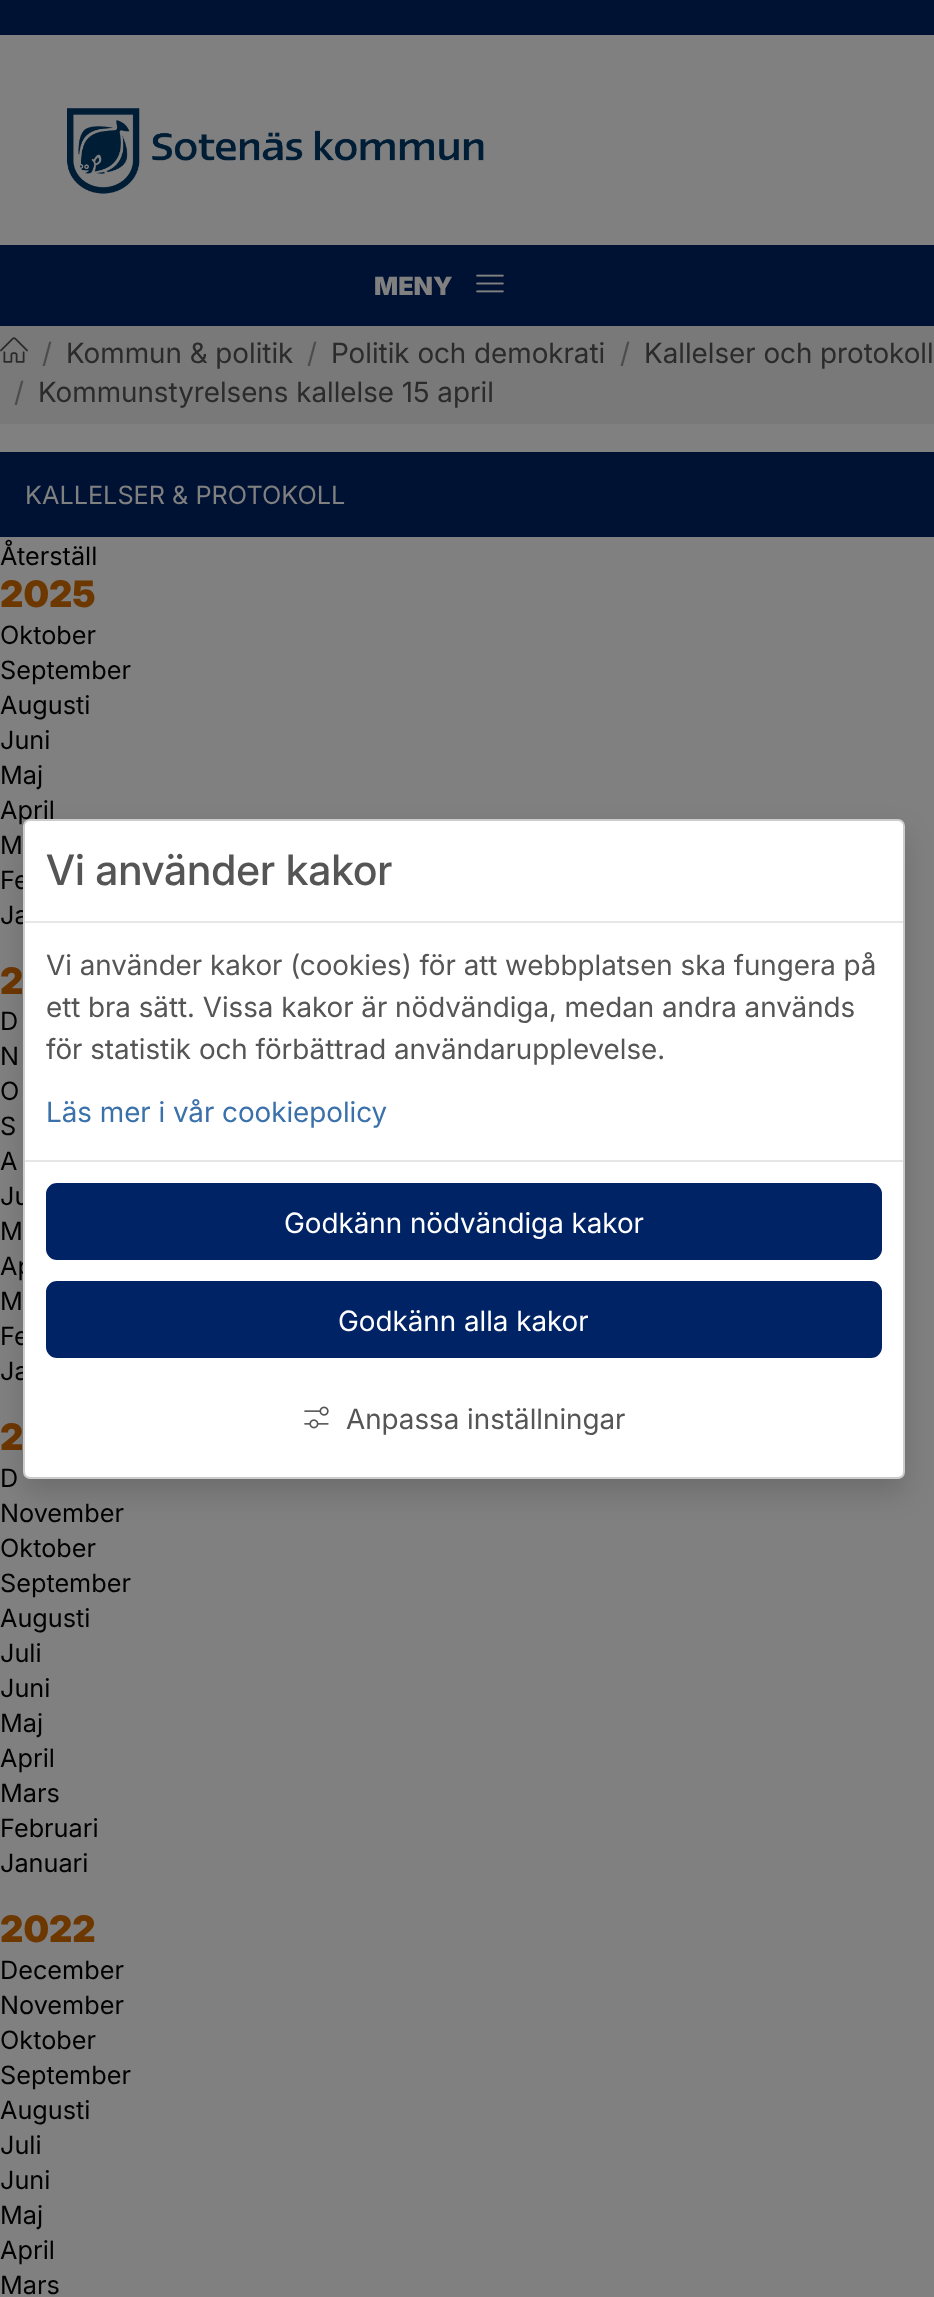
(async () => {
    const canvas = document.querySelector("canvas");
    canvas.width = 934;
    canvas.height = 2297;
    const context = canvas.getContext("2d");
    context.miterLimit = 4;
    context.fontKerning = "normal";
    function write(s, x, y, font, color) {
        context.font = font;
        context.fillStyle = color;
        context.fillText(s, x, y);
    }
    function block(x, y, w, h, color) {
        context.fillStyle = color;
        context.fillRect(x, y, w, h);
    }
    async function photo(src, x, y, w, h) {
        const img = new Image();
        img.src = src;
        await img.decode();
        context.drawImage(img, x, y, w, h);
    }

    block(0, 0, 934, 2297, "rgb(128, 128, 128)");
    block(0, 0, 934, 35, "rgb(0, 18, 51)");
    await photo("media/1.png", 67, 108, 417, 86);
    block(0, 245, 934, 81, "rgb(0, 18, 51)");
    write("MENY", 374, 295, "900 25.25px Inter", "rgb(128, 128, 128)");
    await photo("media/2.png", 476, 274, 28, 19);
    block(0, 326, 934, 98, "rgb(121, 121, 121)");
    await photo("media/3.png", 0, 337, 28, 26);
    write("/", 42, 363, "28px Inter", "rgb(77, 77, 77)");
    write("Kommun & politik", 66, 363, "28px Inter", "rgb(43, 43, 43)");
    write("/", 307, 363, "28px Inter", "rgb(77, 77, 77)");
    write("Politik och demokrati", 331, 363, "28px Inter", "rgb(43, 43, 43)");
    write("/", 620, 363, "28px Inter", "rgb(77, 77, 77)");
    write("Kallelser och protokoll", 644, 363, "28px Inter", "rgb(43, 43, 43)");
    write("/", 14, 402, "28px Inter", "rgb(77, 77, 77)");
    write("Kommunstyrelsens kallelse 15 april", 38, 402, "28px Inter", "rgb(43, 43, 43)");
    block(0, 452, 934, 85, "rgb(0, 18, 51)");
    write("KALLELSER & PROTOKOLL", 25, 504, "25.25px 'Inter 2'", "rgb(128, 128, 128)");
    write("Återställ", 0, 565, "25.25px 'Inter 2'", "rgb(0, 0, 0)");
    write("2025", 0, 607, "900 36.5px 'Inter 2'", "rgb(109, 55, 0)");
    write("Oktober", 0, 644, "25.25px 'Inter 2'", "rgb(0, 0, 0)");
    write("September", 0, 679, "25.25px 'Inter 2'", "rgb(0, 0, 0)");
    write("Augusti", 0, 714, "25.25px 'Inter 2'", "rgb(0, 0, 0)");
    write("Juni", 0, 749, "25.25px 'Inter 2'", "rgb(0, 0, 0)");
    write("Maj", 0, 784, "25.25px 'Inter 2'", "rgb(0, 0, 0)");
    write("April", 0, 819, "25.25px 'Inter 2'", "rgb(0, 0, 0)");
    write("M", 0, 854, "25.25px 'Inter 2'", "rgb(0, 0, 0)");
    write("Fe", 0, 889, "25.25px 'Inter 2'", "rgb(0, 0, 0)");
    write("Ja", 0, 924, "25.25px 'Inter 2'", "rgb(0, 0, 0)");
    write("2", 0, 994, "900 36.5px 'Inter 2'", "rgb(109, 55, 0)");
    write("D", 0, 1030, "25.25px 'Inter 2'", "rgb(0, 0, 0)");
    write("N", 0, 1065, "25.25px 'Inter 2'", "rgb(0, 0, 0)");
    write("O", 0, 1100, "25.25px 'Inter 2'", "rgb(0, 0, 0)");
    write("S", 0, 1135, "25.25px 'Inter 2'", "rgb(0, 0, 0)");
    write("A", 0, 1170, "25.25px 'Inter 2'", "rgb(0, 0, 0)");
    write("Ju", 0, 1205, "25.25px 'Inter 2'", "rgb(0, 0, 0)");
    write("M", 0, 1240, "25.25px 'Inter 2'", "rgb(0, 0, 0)");
    write("Ap", 0, 1275, "25.25px 'Inter 2'", "rgb(0, 0, 0)");
    write("M", 0, 1310, "25.25px 'Inter 2'", "rgb(0, 0, 0)");
    write("Fe", 0, 1345, "25.25px 'Inter 2'", "rgb(0, 0, 0)");
    write("Ja", 0, 1380, "25.25px 'Inter 2'", "rgb(0, 0, 0)");
    write("2", 0, 1450, "900 36.5px 'Inter 2'", "rgb(109, 55, 0)");
    write("D", 0, 1487, "25.25px 'Inter 2'", "rgb(0, 0, 0)");
    write("November", 0, 1522, "25.25px 'Inter 2'", "rgb(0, 0, 0)");
    write("Oktober", 0, 1557, "25.25px 'Inter 2'", "rgb(0, 0, 0)");
    write("September", 0, 1592, "25.25px 'Inter 2'", "rgb(0, 0, 0)");
    write("Augusti", 0, 1627, "25.25px 'Inter 2'", "rgb(0, 0, 0)");
    write("Juli", 0, 1662, "25.25px 'Inter 2'", "rgb(0, 0, 0)");
    write("Juni", 0, 1697, "25.25px 'Inter 2'", "rgb(0, 0, 0)");
    write("Maj", 0, 1732, "25.25px 'Inter 2'", "rgb(0, 0, 0)");
    write("April", 0, 1767, "25.25px 'Inter 2'", "rgb(0, 0, 0)");
    write("Mars", 0, 1802, "25.25px 'Inter 2'", "rgb(0, 0, 0)");
    write("Februari", 0, 1837, "25.25px 'Inter 2'", "rgb(0, 0, 0)");
    write("Januari", 0, 1872, "25.25px 'Inter 2'", "rgb(0, 0, 0)");
    write("2022", 0, 1942, "900 36.5px 'Inter 2'", "rgb(109, 55, 0)");
    write("December", 0, 1979, "25.25px 'Inter 2'", "rgb(0, 0, 0)");
    write("November", 0, 2014, "25.25px 'Inter 2'", "rgb(0, 0, 0)");
    write("Oktober", 0, 2049, "25.25px 'Inter 2'", "rgb(0, 0, 0)");
    write("September", 0, 2084, "25.25px 'Inter 2'", "rgb(0, 0, 0)");
    write("Augusti", 0, 2119, "25.25px 'Inter 2'", "rgb(0, 0, 0)");
    write("Juli", 0, 2154, "25.25px 'Inter 2'", "rgb(0, 0, 0)");
    write("Juni", 0, 2189, "25.25px 'Inter 2'", "rgb(0, 0, 0)");
    write("Maj", 0, 2224, "25.25px 'Inter 2'", "rgb(0, 0, 0)");
    write("April", 0, 2259, "25.25px 'Inter 2'", "rgb(0, 0, 0)");
    write("Mars", 0, 2294, "25.25px 'Inter 2'", "rgb(0, 0, 0)");
    context.fillStyle = "rgba(0, 0, 0, 0.15)";
    context.filter = "blur(14px)";
    context.beginPath();
    context.roundRect(23, 833, 882, 660, 7);
    context.fill();
    context.filter = "none";
    context.fillStyle = "rgb(255, 255, 255)";
    context.beginPath();
    context.roundRect(24, 820, 880, 658, 6);
    context.fill();
    context.strokeStyle = "rgb(204, 204, 204)";
    context.lineWidth = 2;
    context.stroke();
    block(25, 921, 878, 2, "rgb(230, 230, 230)");
    write("Vi använder kakor", 46, 885, "500 42px Inter", "rgb(85, 85, 85)");
    write("Vi använder kakor (cookies) för att webbplatsen ska fungera på", 46, 975, "28px Inter", "rgb(85, 85, 85)");
    write("ett bra sätt. Vissa kakor är nödvändiga, medan andra används", 46, 1017, "28px Inter", "rgb(85, 85, 85)");
    write("för statistik och förbättrad användarupplevelse.", 46, 1059, "28px Inter", "rgb(85, 85, 85)");
    write("Läs mer i vår cookiepolicy", 46, 1122, "28px Inter", "rgb(58, 113, 170)");
    block(25, 1160, 878, 2, "rgb(230, 230, 230)");
    context.fillStyle = "rgb(0, 35, 101)";
    context.beginPath();
    context.roundRect(47, 1184, 834, 75, 10);
    context.fill();
    context.strokeStyle = "rgb(0, 35, 101)";
    context.stroke();
    write("Godkänn nödvändiga kakor", 284, 1233, "28px Inter", "rgb(255, 255, 255)");
    context.fillStyle = "rgb(0, 35, 101)";
    context.beginPath();
    context.roundRect(47, 1282, 834, 75, 10);
    context.fill();
    context.stroke();
    write("Godkänn alla kakor", 338, 1331, "28px Inter", "rgb(255, 255, 255)");
    await photo("media/4.png", 304, 1406, 25, 23);
    write("Anpassa inställningar", 346, 1429, "28px Inter", "rgb(85, 85, 85)");
})();
